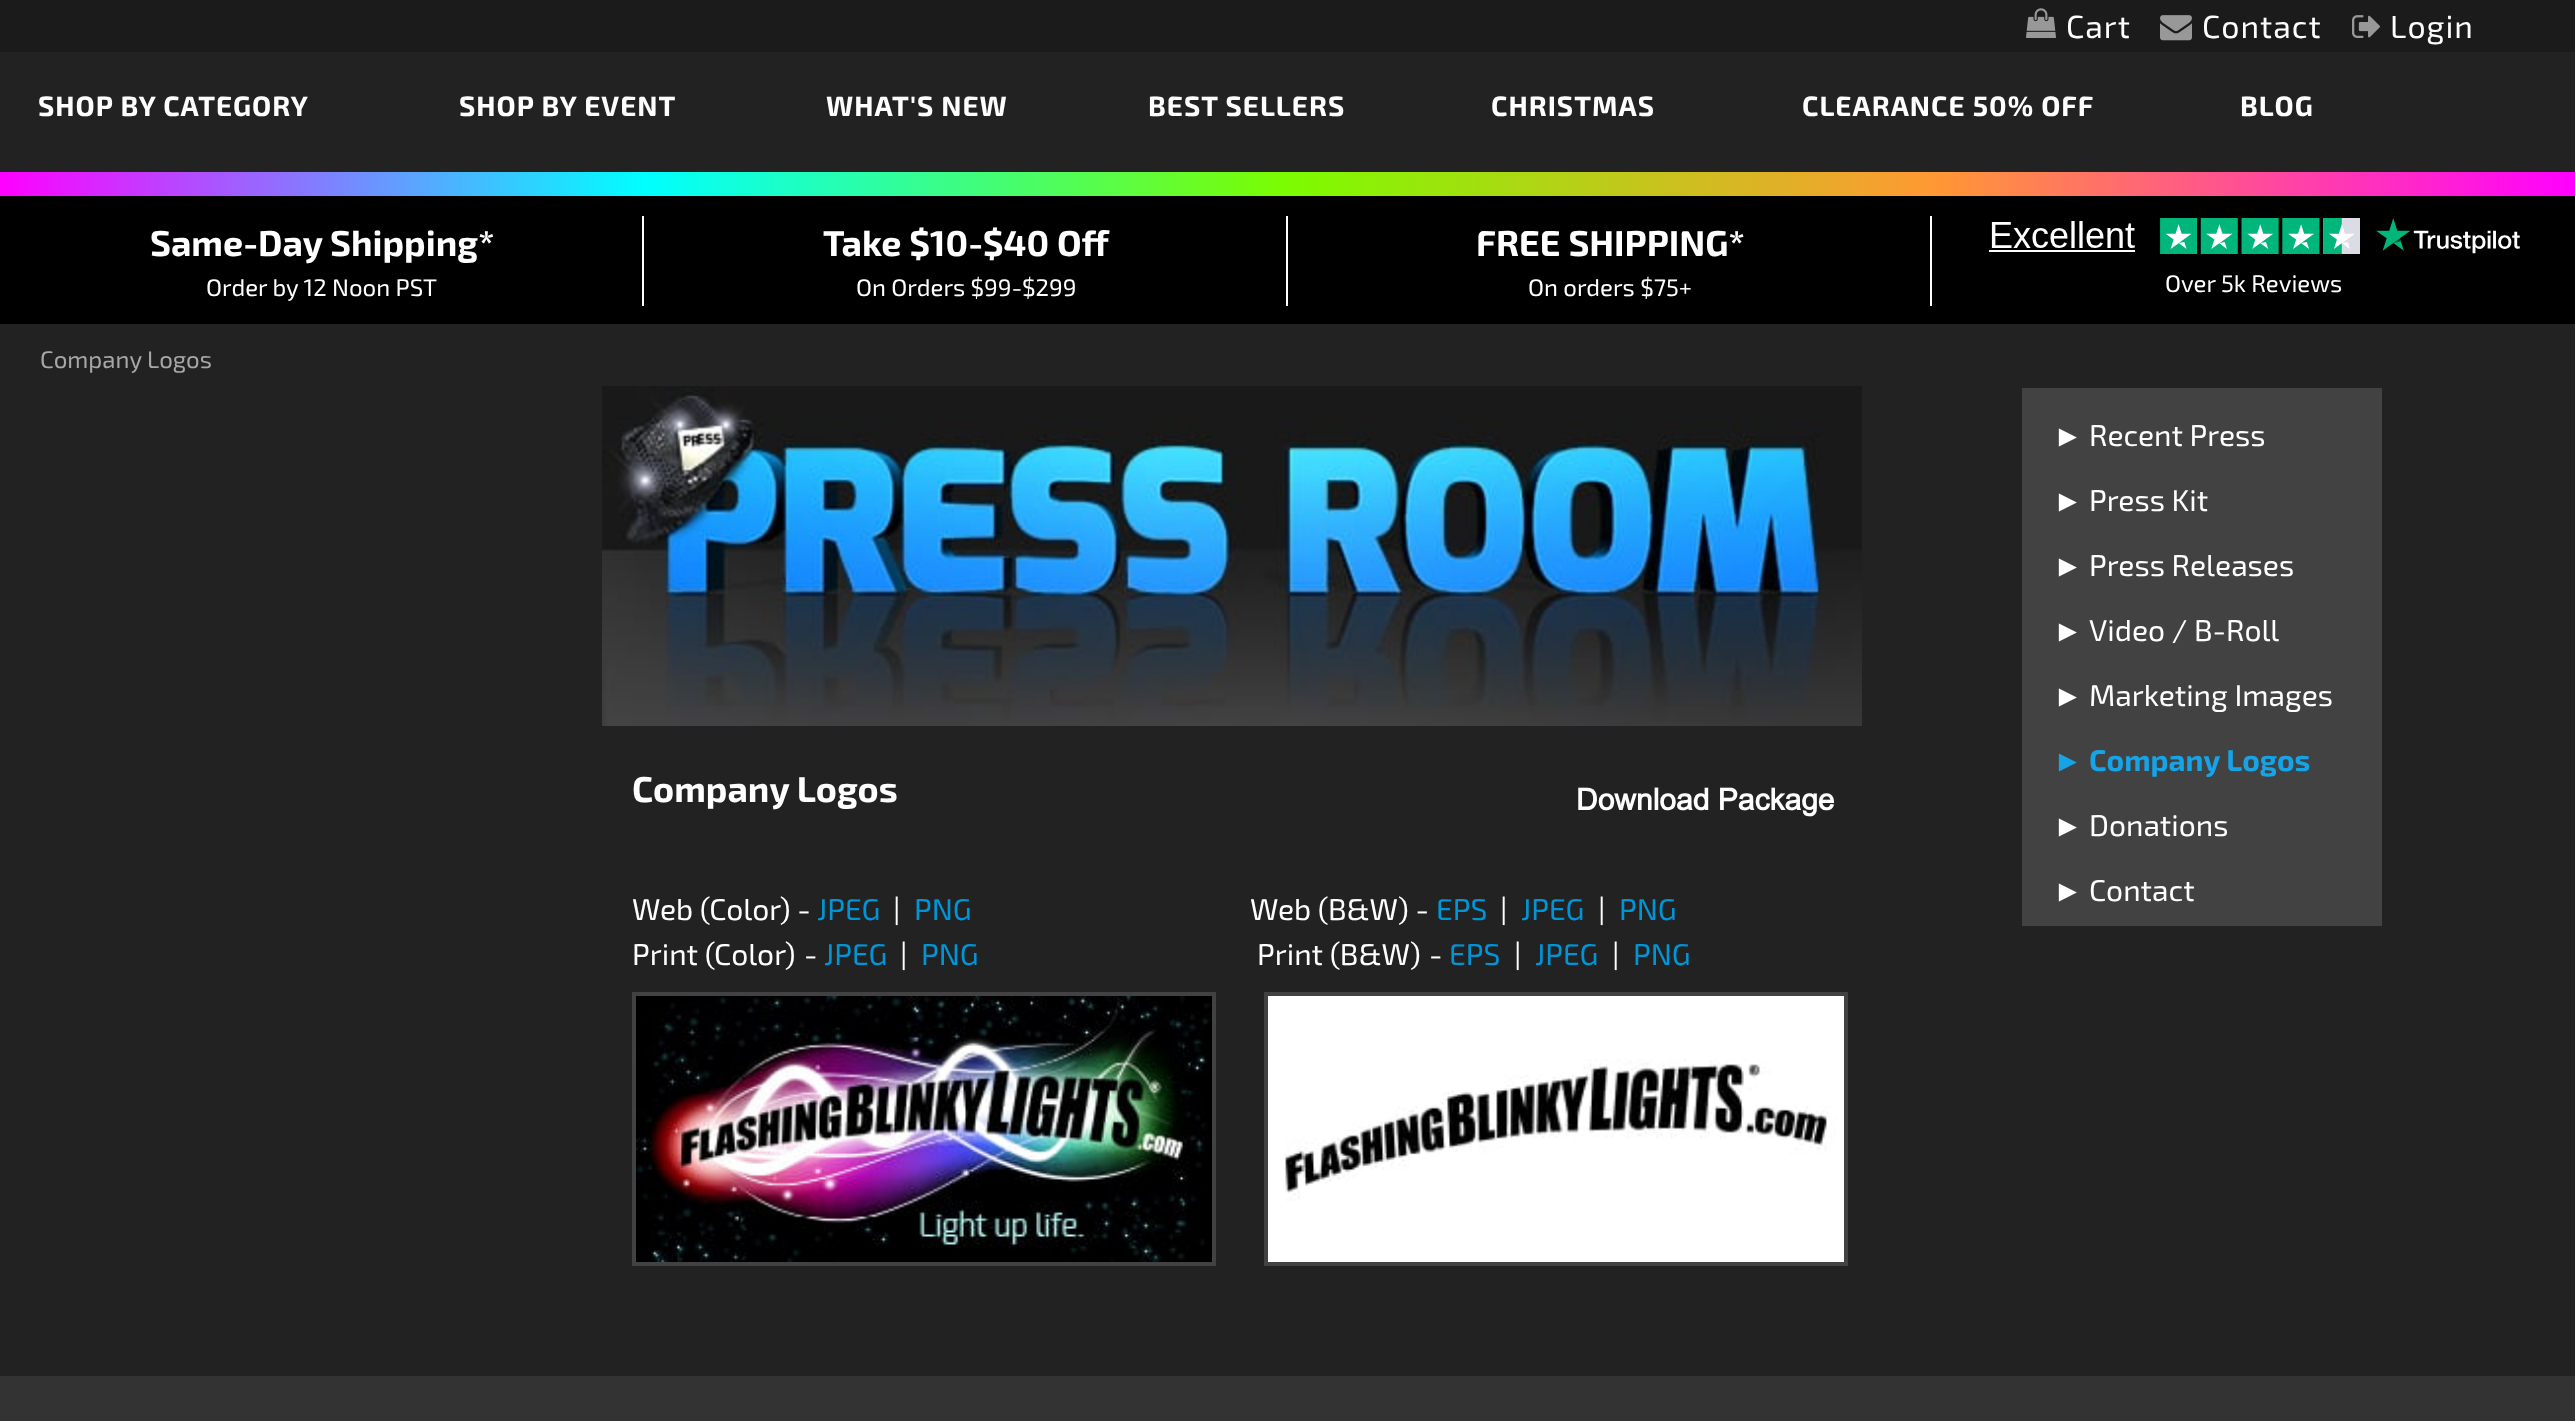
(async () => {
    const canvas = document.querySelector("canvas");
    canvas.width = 2575;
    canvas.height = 1421;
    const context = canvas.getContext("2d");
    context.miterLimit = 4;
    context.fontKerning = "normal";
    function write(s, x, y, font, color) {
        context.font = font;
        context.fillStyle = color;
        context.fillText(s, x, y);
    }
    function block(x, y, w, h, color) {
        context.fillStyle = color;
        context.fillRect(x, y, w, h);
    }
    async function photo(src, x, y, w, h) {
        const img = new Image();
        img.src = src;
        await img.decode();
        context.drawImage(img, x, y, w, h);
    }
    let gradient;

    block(0, 0, 2575, 1421, "rgb(34, 34, 34)");
    block(0, 0, 2575, 52, "rgb(27, 27, 27)");
    await photo("media/1.png", 2026, 8, 30, 30);
    context.letterSpacing = "1px";
    write("Cart", 2066, 38, "32px 'Exo 2'", "rgb(255, 255, 255)");
    await photo("media/2.png", 2160, 15, 32, 26);
    write("Contact", 2202, 38, "32px 'Exo 2'", "rgb(255, 255, 255)");
    await photo("media/3.png", 2352, 15, 28, 23);
    write("Login", 2390, 38, "32px 'Exo 2'", "rgb(255, 255, 255)");
    write("SHOP BY CATEGORY", 38, 116, "bold 28px 'Exo 2'", "rgb(255, 255, 255)");
    write("SHOP BY EVENT", 459, 116, "bold 28px 'Exo 2'", "rgb(255, 255, 255)");
    write("WHAT'S NEW", 826, 116, "bold 28px 'Exo 2'", "rgb(255, 255, 255)");
    write("BEST SELLERS", 1148, 116, "bold 28px 'Exo 2'", "rgb(255, 255, 255)");
    write("CHRISTMAS", 1491, 116, "bold 28px 'Exo 2'", "rgb(255, 255, 255)");
    write("CLEARANCE 50% OFF", 1802, 116, "bold 28px 'Exo 2'", "rgb(255, 255, 255)");
    write("BLOG", 2240, 116, "bold 28px 'Exo 2'", "rgb(255, 255, 255)");
    gradient = context.createLinearGradient(0, 184, 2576, 184);
    gradient.addColorStop(0, "rgb(255, 0, 255)");
    gradient.addColorStop(0.25, "rgb(0, 255, 255)");
    gradient.addColorStop(0.5, "rgb(124, 252, 0)");
    gradient.addColorStop(0.75, "rgb(255, 153, 51)");
    gradient.addColorStop(1, "rgb(255, 0, 255)");
    context.fillStyle = gradient;
    context.fillRect(0, 172, 2575, 24);
    block(0, 196, 2575, 128, "rgb(0, 0, 0)");
    context.letterSpacing = "0px";
    write("Same-Day Shipping*", 150, 256, "bold 36px 'Exo 2'", "rgb(255, 255, 255)");
    write("Order by 12 Noon PST", 206, 296, "24px 'Exo 2'", "rgb(255, 255, 255)");
    block(642, 216, 2, 90, "rgb(255, 255, 255)");
    write("Take $10-$40 Off", 823, 256, "bold 36px 'Exo 2'", "rgb(255, 255, 255)");
    write("On Orders $99-$299", 856, 296, "24px 'Exo 2'", "rgb(255, 255, 255)");
    block(1286, 216, 2, 90, "rgb(255, 255, 255)");
    write("FREE SHIPPING*", 1476, 256, "bold 36px 'Exo 2'", "rgb(255, 255, 255)");
    write("On orders $75+", 1528, 296, "24px 'Exo 2'", "rgb(255, 255, 255)");
    block(1930, 216, 2, 90, "rgb(255, 255, 255)");
    await photo("media/4.png", 1988, 218, 532, 36);
    write("Over 5k Reviews", 2165, 292, "24px 'Exo 2'", "rgb(255, 255, 255)");
    write("Company Logos", 40, 368, "24px 'Exo 2'", "rgb(167, 167, 167)");
    await photo("media/5.png", 602, 386, 1260, 340);
    block(2022, 388, 360, 538, "rgb(66, 66, 66)");
    write("►", 2053, 446, "30px Liberation Sans", "rgb(255, 255, 255)");
    write("Recent Press", 2089, 446, "30px 'Exo 2'", "rgb(255, 255, 255)");
    write("►", 2053, 511, "30px Liberation Sans", "rgb(255, 255, 255)");
    write("Press Kit", 2089, 511, "30px 'Exo 2'", "rgb(255, 255, 255)");
    write("►", 2053, 576, "30px Liberation Sans", "rgb(255, 255, 255)");
    write("Press Releases", 2089, 576, "30px 'Exo 2'", "rgb(255, 255, 255)");
    write("►", 2053, 641, "30px Liberation Sans", "rgb(255, 255, 255)");
    write("Video / B-Roll", 2089, 641, "30px 'Exo 2'", "rgb(255, 255, 255)");
    write("►", 2053, 706, "30px Liberation Sans", "rgb(255, 255, 255)");
    write("Marketing Images", 2089, 706, "30px 'Exo 2'", "rgb(255, 255, 255)");
    write("►", 2053, 771, "30px Liberation Sans", "rgb(22, 164, 231)");
    write("Company Logos", 2089, 771, "bold 30px 'Exo 2'", "rgb(22, 164, 231)");
    write("►", 2053, 836, "30px Liberation Sans", "rgb(255, 255, 255)");
    write("Donations", 2089, 836, "30px 'Exo 2'", "rgb(255, 255, 255)");
    write("►", 2053, 901, "30px Liberation Sans", "rgb(255, 255, 255)");
    write("Contact", 2089, 901, "30px 'Exo 2'", "rgb(255, 255, 255)");
    write("Company Logos", 632, 802, "bold 36px 'Exo 2'", "rgb(255, 255, 255)");
    write("Download Package", 1576, 810, "bold 30px Arial", "rgb(255, 255, 255)");
    write("Web (Color) -", 632, 920, "30px 'Exo 2'", "rgb(255, 255, 255)");
    write("JPEG", 817, 920, "30px 'Exo 2'", "rgb(0, 149, 215)");
    write("|", 893, 920, "30px 'Exo 2'", "rgb(255, 255, 255)");
    write("PNG", 914, 920, "30px 'Exo 2'", "rgb(0, 149, 215)");
    write("Web (B&W) -", 1250, 920, "30px 'Exo 2'", "rgb(255, 255, 255)");
    write("EPS", 1436, 920, "30px 'Exo 2'", "rgb(0, 149, 215)");
    write("|", 1500, 920, "30px 'Exo 2'", "rgb(255, 255, 255)");
    write("JPEG", 1521, 920, "30px 'Exo 2'", "rgb(0, 149, 215)");
    write("|", 1598, 920, "30px 'Exo 2'", "rgb(255, 255, 255)");
    write("PNG", 1619, 920, "30px 'Exo 2'", "rgb(0, 149, 215)");
    write("Print (Color)", 632, 965, "30px 'Exo 2'", "rgb(255, 255, 255)");
    write("-", 804, 965, "30px 'Exo 2'", "rgb(255, 255, 255)");
    write("JPEG", 824, 965, "30px 'Exo 2'", "rgb(0, 149, 215)");
    write("|", 900, 965, "30px 'Exo 2'", "rgb(255, 255, 255)");
    write("PNG", 921, 965, "30px 'Exo 2'", "rgb(0, 149, 215)");
    write("Print (B&W)", 1257, 965, "30px 'Exo 2'", "rgb(255, 255, 255)");
    write("-", 1429, 965, "30px 'Exo 2'", "rgb(255, 255, 255)");
    write("EPS", 1449, 965, "30px 'Exo 2'", "rgb(0, 149, 215)");
    write("|", 1514, 965, "30px 'Exo 2'", "rgb(255, 255, 255)");
    write("JPEG", 1535, 965, "30px 'Exo 2'", "rgb(0, 149, 215)");
    write("|", 1612, 965, "30px 'Exo 2'", "rgb(255, 255, 255)");
    write("PNG", 1633, 965, "30px 'Exo 2'", "rgb(0, 149, 215)");
    context.strokeStyle = "rgb(66, 66, 66)";
    context.lineWidth = 4;
    context.strokeRect(634, 994, 580, 270);
    await photo("media/6.png", 636, 996, 576, 266);
    context.strokeRect(1266, 994, 580, 270);
    await photo("media/7.png", 1268, 996, 576, 266);
    block(0, 1376, 2575, 45, "rgb(51, 51, 51)");
})();
